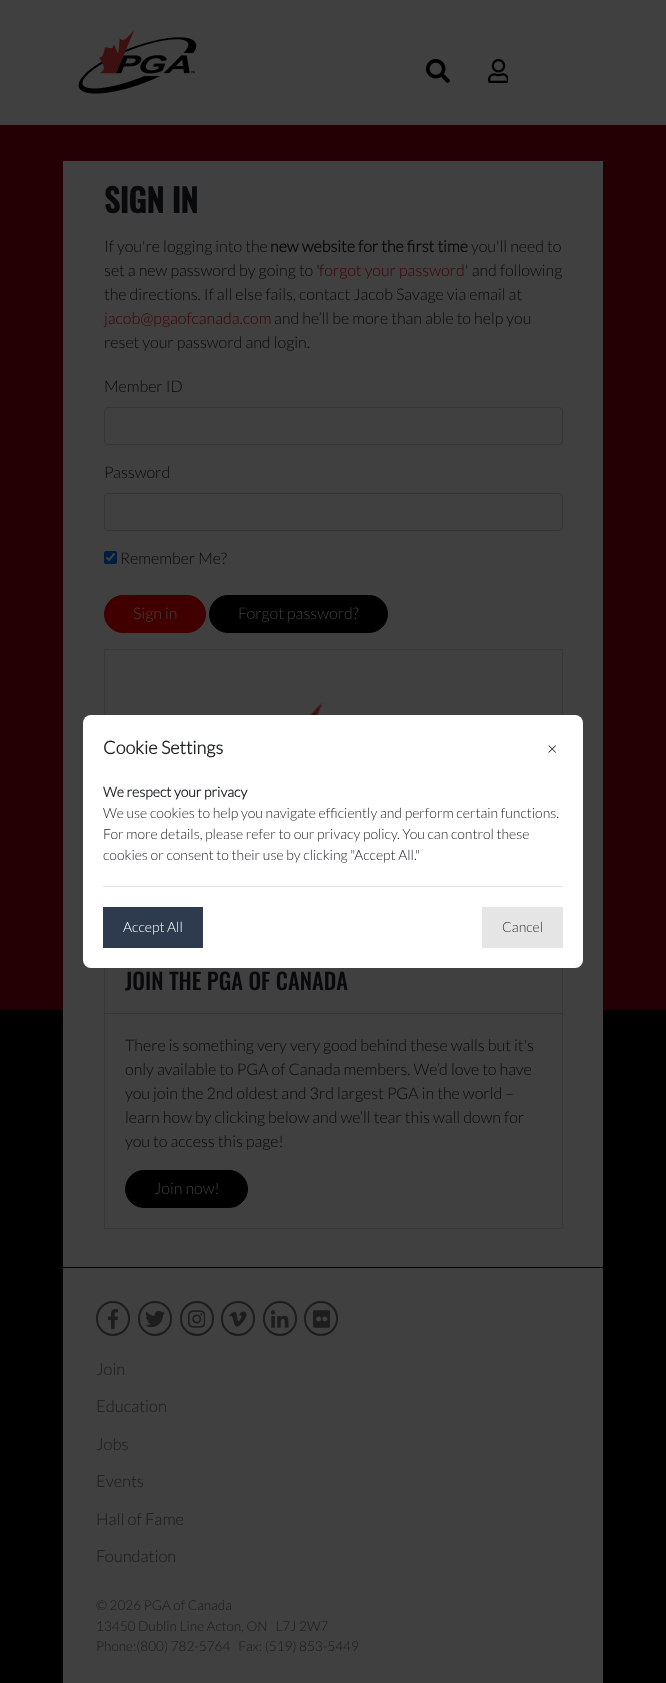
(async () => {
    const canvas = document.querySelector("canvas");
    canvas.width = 666;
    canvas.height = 1683;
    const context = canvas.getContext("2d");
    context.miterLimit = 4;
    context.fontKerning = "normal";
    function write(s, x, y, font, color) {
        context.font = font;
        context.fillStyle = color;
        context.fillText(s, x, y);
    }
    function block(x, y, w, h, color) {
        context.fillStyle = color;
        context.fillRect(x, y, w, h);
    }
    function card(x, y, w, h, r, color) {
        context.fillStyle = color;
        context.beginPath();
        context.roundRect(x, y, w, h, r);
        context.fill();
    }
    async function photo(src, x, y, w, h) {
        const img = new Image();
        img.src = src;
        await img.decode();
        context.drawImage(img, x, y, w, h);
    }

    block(0, 0, 666, 1683, "rgb(0, 0, 0)");
    block(0, 0, 666, 125, "rgb(64, 64, 64)");
    await photo("media/1.png", 78, 30, 119, 64);
    await photo("media/2.png", 426, 59, 24, 24);
    await photo("media/3.png", 488, 59, 20, 24);
    block(0, 125, 666, 885, "rgb(36, 0, 4)");
    block(63, 161, 540, 1106, "rgb(64, 64, 64)");
    write("SIGN IN", 104, 213, "bold 32px Oswald", "rgb(8, 9, 10)");
    write("If you're logging into the", 104, 252, "300 16px Lato", "rgb(8, 9, 10)");
    write("new website for the first time", 270, 252, "bold 16px Lato", "rgb(8, 9, 10)");
    write("you'll need to", 471, 252, "300 16px Lato", "rgb(8, 9, 10)");
    write("set a new password by going to '", 104, 276, "300 16px Lato", "rgb(8, 9, 10)");
    write("forgot your password", 319, 276, "300 16px Lato", "rgb(64, 0, 1)");
    write("' and following", 465, 276, "300 16px Lato", "rgb(8, 9, 10)");
    write("the directions. If all else fails, contact Jacob Savage via email at", 104, 300, "300 16px Lato", "rgb(8, 9, 10)");
    write("jacob@pgaofcanada.com", 104, 324, "300 16px Lato", "rgb(64, 0, 1)");
    write("and he’ll be more than able to help you", 274, 324, "300 16px Lato", "rgb(8, 9, 10)");
    write("reset your password and login.", 104, 348, "300 16px Lato", "rgb(8, 9, 10)");
    write("Member ID", 104, 392, "300 16px Lato", "rgb(8, 9, 10)");
    context.beginPath();
    context.roundRect(104.5, 407.5, 458, 37, 3.5);
    context.strokeStyle = "rgb(52, 53, 55)";
    context.stroke();
    write("Password", 104, 478, "300 16px Lato", "rgb(8, 9, 10)");
    context.beginPath();
    context.roundRect(104.5, 493.5, 458, 37, 3.5);
    context.stroke();
    card(104, 551, 13, 13, 2, "rgb(0, 29, 64)");
    context.beginPath();
    context.moveTo(106.5, 557.5);
    context.lineTo(109, 560);
    context.lineTo(114.5, 553.5);
    context.strokeStyle = "rgb(64, 64, 64)";
    context.lineWidth = 2.1;
    context.stroke();
    write("Remember Me?", 120, 564, "300 16px Lato", "rgb(8, 9, 10)");
    context.fillStyle = "rgb(64, 0, 0)";
    context.beginPath();
    context.roundRect(104.5, 595.5, 101, 37, 18.5);
    context.fill();
    context.strokeStyle = "rgb(64, 0, 0)";
    context.lineWidth = 1;
    context.stroke();
    write("Sign in", 133, 619, "300 16px Lato", "rgb(64, 64, 64)");
    context.fillStyle = "rgb(0, 0, 0)";
    context.beginPath();
    context.roundRect(209.5, 595.5, 178, 37, 18.5);
    context.fill();
    context.strokeStyle = "rgb(0, 0, 0)";
    context.stroke();
    write("Forgot password?", 238, 619, "300 16px Lato", "rgb(64, 64, 64)");
    context.strokeStyle = "rgb(56, 56, 56)";
    context.strokeRect(104.5, 649.5, 458, 579);
    await photo("media/4.png", 309, 703, 14, 12);
    block(105, 1013, 457, 1, "rgb(54, 54, 54)");
    write("JOIN THE PGA OF CANADA", 125, 990, "500 22.5px Oswald", "rgb(8, 9, 10)");
    write("There is something very very good behind these walls but it's", 125, 1051, "300 16px Lato", "rgb(8, 9, 10)");
    write("only available to PGA of Canada members. We’d love to have", 125, 1075, "300 16px Lato", "rgb(8, 9, 10)");
    write("you join the 2nd oldest and 3rd largest PGA in the world –", 125, 1099, "300 16px Lato", "rgb(8, 9, 10)");
    write("learn how by clicking below and we’ll tear this wall down for", 125, 1123, "300 16px Lato", "rgb(8, 9, 10)");
    write("you to access this page!", 125, 1147, "300 16px Lato", "rgb(8, 9, 10)");
    context.fillStyle = "rgb(0, 0, 0)";
    context.beginPath();
    context.roundRect(125.5, 1170.5, 122, 37, 18.5);
    context.fill();
    context.strokeStyle = "rgb(0, 0, 0)";
    context.stroke();
    write("Join now!", 154, 1194, "300 16px Lato", "rgb(64, 64, 64)");
    card(83, 715, 500, 253, 8, "rgb(255, 255, 255)");
    write("Cookie Settings", 103, 754, "bold 18px Lato", "rgb(33, 37, 41)");
    write("×", 547, 755, "300 18px Lato", "rgb(0, 0, 0)");
    write("We respect your privacy", 103, 797, "bold 14px Lato", "rgb(33, 37, 41)");
    write("We use cookies to help you navigate efficiently and perform certain functions.", 103, 818, "300 14px Lato", "rgb(33, 37, 41)");
    write("For more details, please refer to our privacy policy. You can control these", 103, 839, "300 14px Lato", "rgb(33, 37, 41)");
    write("cookies or consent to their use by clicking \"Accept All.\"", 103, 860, "300 14px Lato", "rgb(33, 37, 41)");
    block(103, 886, 460, 1, "rgb(229, 229, 229)");
    block(103, 907, 100, 41, "rgb(46, 59, 78)");
    write("Accept All", 123, 932, "300 14px Lato", "rgb(255, 255, 255)");
    block(482, 907, 81, 41, "rgb(229, 229, 229)");
    write("Cancel", 502, 932, "300 14px Lato", "rgb(51, 51, 51)");
    block(63, 1268, 540, 415, "rgb(64, 64, 64)");
    context.beginPath();
    context.roundRect(97, 1302, 32, 33, 16);
    context.strokeStyle = "rgb(29, 29, 29)";
    context.lineWidth = 2;
    context.stroke();
    await photo("media/5.png", 108, 1309, 10, 20);
    context.beginPath();
    context.roundRect(139, 1302, 32, 33, 16);
    context.stroke();
    await photo("media/6.png", 145, 1310, 20, 18);
    context.beginPath();
    context.roundRect(181, 1302, 32, 33, 16);
    context.stroke();
    await photo("media/7.png", 188, 1310, 17, 18);
    context.beginPath();
    context.roundRect(222, 1302, 32, 33, 16);
    context.stroke();
    await photo("media/8.png", 229, 1311, 18, 16);
    context.beginPath();
    context.roundRect(264, 1302, 32, 33, 16);
    context.stroke();
    await photo("media/9.png", 271, 1310, 18, 18);
    context.beginPath();
    context.roundRect(305, 1302, 32, 33, 16);
    context.stroke();
    await photo("media/10.png", 313, 1310, 17, 18);
    write("Join", 96, 1375, "300 16.5px Lato", "rgb(26, 26, 26)");
    write("Education", 96, 1412, "300 16.5px Lato", "rgb(26, 26, 26)");
    write("Jobs", 96, 1450, "300 16.5px Lato", "rgb(26, 26, 26)");
    write("Events", 96, 1487, "300 16.5px Lato", "rgb(26, 26, 26)");
    write("Hall of Fame", 96, 1525, "300 16.5px Lato", "rgb(26, 26, 26)");
    write("Foundation", 96, 1562, "300 16.5px Lato", "rgb(26, 26, 26)");
    write("© 2026 PGA of Canada", 96, 1610, "300 13.6px Lato", "rgb(26, 26, 26)");
    write("13450 Dublin Line Acton, ON   L7J 2W7", 96, 1631, "300 13.6px Lato", "rgb(26, 26, 26)");
    write("Phone:(800) 782-5764   Fax: (519) 853-5449", 96, 1651, "300 13.6px Lato", "rgb(26, 26, 26)");
})();
